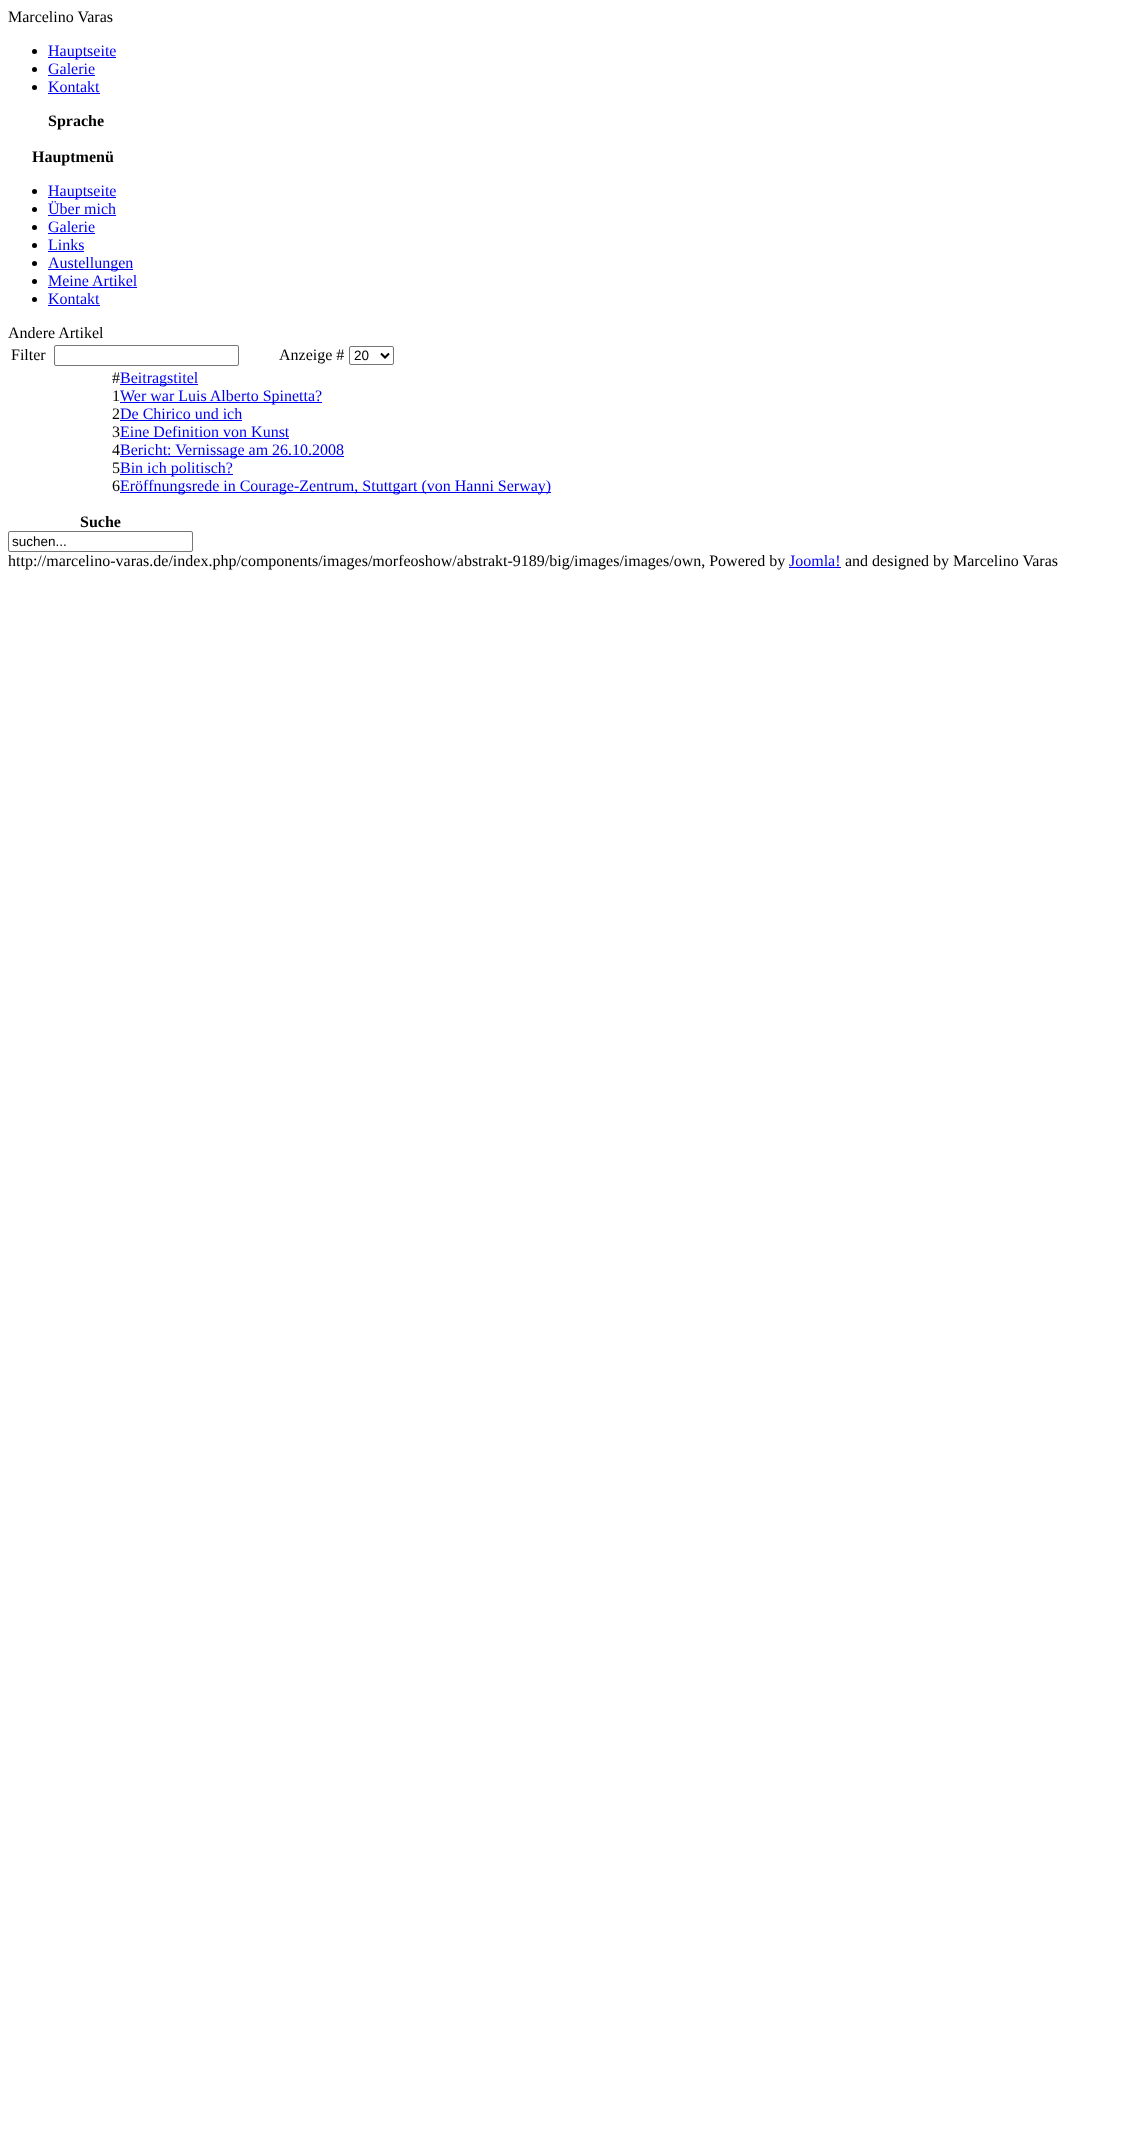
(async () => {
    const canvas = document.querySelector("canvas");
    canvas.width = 1135;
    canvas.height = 2142;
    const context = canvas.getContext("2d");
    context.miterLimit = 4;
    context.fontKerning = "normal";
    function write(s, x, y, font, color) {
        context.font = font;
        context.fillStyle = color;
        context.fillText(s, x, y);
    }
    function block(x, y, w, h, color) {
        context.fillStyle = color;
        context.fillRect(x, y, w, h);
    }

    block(0, 0, 1135, 2142, "rgb(255, 255, 255)");
    write("Marcelino Varas", 8, 22, "16px Liberation Serif", "rgb(0, 0, 0)");
    context.beginPath();
    context.arc(34.5, 51.5, 2.5, 0, Math.PI * 2);
    context.fill();
    block(48, 57, 68, 1, "rgb(0, 0, 238)");
    write("Hauptseite", 48, 56, "16px Liberation Serif", "rgb(0, 0, 238)");
    context.fillStyle = "rgb(0, 0, 0)";
    context.beginPath();
    context.arc(34.5, 69.5, 2.5, 0, Math.PI * 2);
    context.fill();
    write("Galerie", 48, 74, "16px Liberation Serif", "rgb(0, 0, 238)");
    block(48, 75, 47, 1, "rgb(0, 0, 238)");
    context.fillStyle = "rgb(0, 0, 0)";
    context.beginPath();
    context.arc(34.5, 87.5, 2.5, 0, Math.PI * 2);
    context.fill();
    write("Kontakt", 48, 92, "16px Liberation Serif", "rgb(0, 0, 238)");
    block(48, 93, 52, 1, "rgb(0, 0, 238)");
    write("Sprache", 48, 126, "bold 16px Liberation Serif", "rgb(0, 0, 0)");
    write("Hauptmenü", 32, 162, "bold 16px Liberation Serif", "rgb(0, 0, 0)");
    context.beginPath();
    context.arc(34.5, 191.5, 2.5, 0, Math.PI * 2);
    context.fill();
    block(48, 197, 68, 1, "rgb(0, 0, 238)");
    write("Hauptseite", 48, 196, "16px Liberation Serif", "rgb(0, 0, 238)");
    context.fillStyle = "rgb(0, 0, 0)";
    context.beginPath();
    context.arc(34.5, 209.5, 2.5, 0, Math.PI * 2);
    context.fill();
    write("Über mich", 48, 214, "16px Liberation Serif", "rgb(0, 0, 238)");
    block(48, 215, 68, 1, "rgb(0, 0, 238)");
    context.fillStyle = "rgb(0, 0, 0)";
    context.beginPath();
    context.arc(34.5, 227.5, 2.5, 0, Math.PI * 2);
    context.fill();
    write("Galerie", 48, 232, "16px Liberation Serif", "rgb(0, 0, 238)");
    block(48, 233, 47, 1, "rgb(0, 0, 238)");
    context.fillStyle = "rgb(0, 0, 0)";
    context.beginPath();
    context.arc(34.5, 245.5, 2.5, 0, Math.PI * 2);
    context.fill();
    write("Links", 48, 250, "16px Liberation Serif", "rgb(0, 0, 238)");
    block(48, 251, 36, 1, "rgb(0, 0, 238)");
    context.fillStyle = "rgb(0, 0, 0)";
    context.beginPath();
    context.arc(34.5, 263.5, 2.5, 0, Math.PI * 2);
    context.fill();
    block(48, 269, 85, 1, "rgb(0, 0, 238)");
    write("Austellungen", 48, 268, "16px Liberation Serif", "rgb(0, 0, 238)");
    context.fillStyle = "rgb(0, 0, 0)";
    context.beginPath();
    context.arc(34.5, 281.5, 2.5, 0, Math.PI * 2);
    context.fill();
    write("Meine Artikel", 48, 286, "16px Liberation Serif", "rgb(0, 0, 238)");
    block(48, 287, 89, 1, "rgb(0, 0, 238)");
    context.fillStyle = "rgb(0, 0, 0)";
    context.beginPath();
    context.arc(34.5, 299.5, 2.5, 0, Math.PI * 2);
    context.fill();
    write("Kontakt", 48, 304, "16px Liberation Serif", "rgb(0, 0, 238)");
    block(48, 305, 52, 1, "rgb(0, 0, 238)");
    write("Andere Artikel", 8, 338, "16px Liberation Serif", "rgb(0, 0, 0)");
    write("Filter", 11, 360, "16px Liberation Serif", "rgb(0, 0, 0)");
    context.beginPath();
    context.roundRect(54.5, 345.5, 184, 20, 1.5);
    context.strokeStyle = "rgb(118, 118, 118)";
    context.stroke();
    write("Anzeige #", 279, 360, "16px Liberation Serif", "rgb(0, 0, 0)");
    context.beginPath();
    context.roundRect(349.5, 346.5, 44, 18, 1.5);
    context.stroke();
    context.beginPath();
    context.moveTo(381, 353.5);
    context.lineTo(385, 357.5);
    context.lineTo(389, 353.5);
    context.strokeStyle = "rgb(0, 0, 0)";
    context.lineWidth = 2;
    context.stroke();
    write("20", 354, 360, "13.5px Liberation Sans", "rgb(0, 0, 0)");
    write("#", 112, 383, "16px Liberation Serif", "rgb(0, 0, 0)");
    block(120, 384, 78, 1, "rgb(0, 0, 238)");
    write("Beitragstitel", 120, 383, "16px Liberation Serif", "rgb(0, 0, 238)");
    write("1", 112, 401, "16px Liberation Serif", "rgb(0, 0, 0)");
    block(120, 402, 202, 1, "rgb(0, 0, 238)");
    write("Wer war Luis Alberto Spinetta?", 120, 401, "16px Liberation Serif", "rgb(0, 0, 238)");
    write("2", 112, 419, "16px Liberation Serif", "rgb(0, 0, 0)");
    write("De Chirico und ich", 120, 419, "16px Liberation Serif", "rgb(0, 0, 238)");
    block(120, 420, 122, 1, "rgb(0, 0, 238)");
    write("3", 112, 437, "16px Liberation Serif", "rgb(0, 0, 0)");
    write("Eine Definition von Kunst", 120, 437, "16px Liberation Serif", "rgb(0, 0, 238)");
    block(120, 438, 169, 1, "rgb(0, 0, 238)");
    write("4", 112, 455, "16px Liberation Serif", "rgb(0, 0, 0)");
    block(120, 456, 224, 1, "rgb(0, 0, 238)");
    write("Bericht: Vernissage am 26.10.2008", 120, 455, "16px Liberation Serif", "rgb(0, 0, 238)");
    write("5", 112, 473, "16px Liberation Serif", "rgb(0, 0, 0)");
    block(120, 474, 113, 1, "rgb(0, 0, 238)");
    write("Bin ich politisch?", 120, 473, "16px Liberation Serif", "rgb(0, 0, 238)");
    write("6", 112, 491, "16px Liberation Serif", "rgb(0, 0, 0)");
    block(120, 492, 431, 1, "rgb(0, 0, 238)");
    write("Eröffnungsrede in Courage-Zentrum, Stuttgart (von Hanni Serway)", 120, 491, "16px Liberation Serif", "rgb(0, 0, 238)");
    write("Suche", 80, 527, "bold 16px Liberation Serif", "rgb(0, 0, 0)");
    context.beginPath();
    context.roundRect(8.5, 531.5, 184, 20, 1.5);
    context.strokeStyle = "rgb(118, 118, 118)";
    context.lineWidth = 1;
    context.stroke();
    write("suchen...", 12, 546, "13.5px Liberation Sans", "rgb(0, 0, 0)");
    write("http://marcelino-varas.de/index.php/components/images/morfeoshow/abstrakt-9189/big/images/images/own, Powered by", 8, 566, "16px Liberation Serif", "rgb(0, 0, 0)");
    write("Joomla!", 789, 566, "16px Liberation Serif", "rgb(0, 0, 238)");
    block(789, 567, 52, 1, "rgb(0, 0, 238)");
    write("and designed by Marcelino Varas", 845, 566, "16px Liberation Serif", "rgb(0, 0, 0)");
})();
